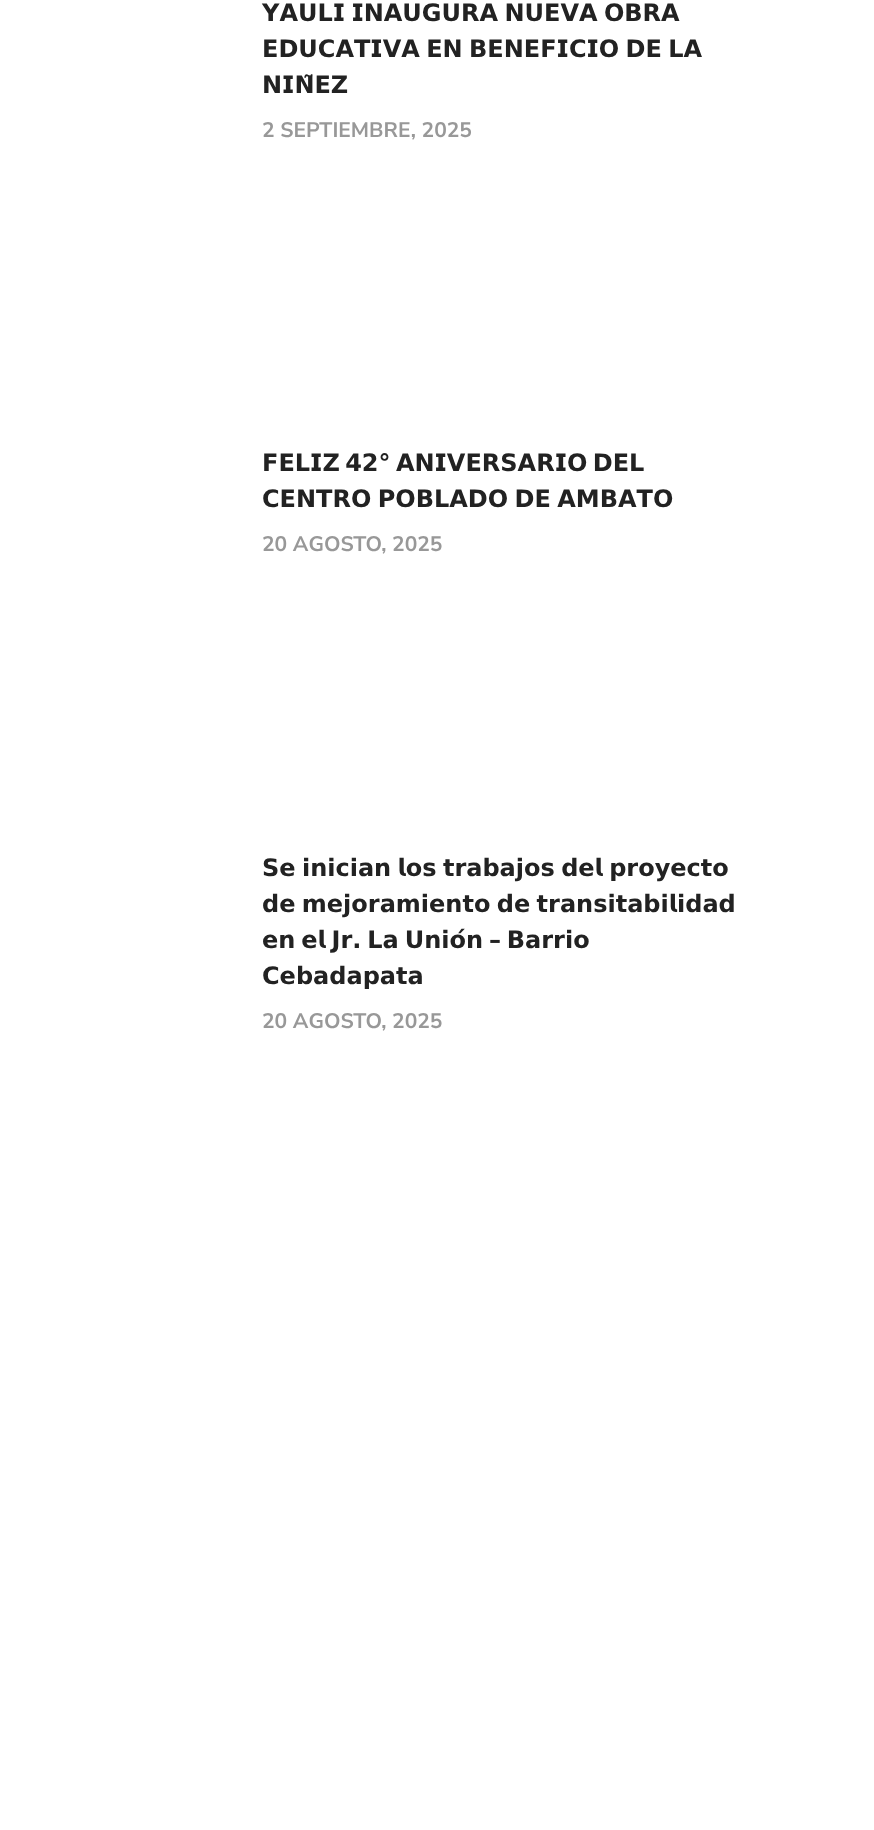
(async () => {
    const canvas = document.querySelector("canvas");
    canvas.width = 874;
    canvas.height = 1830;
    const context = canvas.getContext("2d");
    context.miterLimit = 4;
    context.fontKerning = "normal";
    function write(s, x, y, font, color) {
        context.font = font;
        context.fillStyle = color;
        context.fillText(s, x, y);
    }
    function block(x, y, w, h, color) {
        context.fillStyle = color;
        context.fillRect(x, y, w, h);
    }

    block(0, 0, 874, 1830, "rgb(255, 255, 255)");
    context.wordSpacing = "-2px";
    write("𝗬𝗔𝗨𝗟𝗜 𝗜𝗡𝗔𝗨𝗚𝗨𝗥𝗔 𝗡𝗨𝗘𝗩𝗔 𝗢𝗕𝗥𝗔", 262, 21, "bold 24px DejaVu Sans", "rgb(34, 34, 34)");
    write("𝗘𝗗𝗨𝗖𝗔𝗧𝗜𝗩𝗔 𝗘𝗡 𝗕𝗘𝗡𝗘𝗙𝗜𝗖𝗜𝗢 𝗗𝗘 𝗟𝗔", 262, 57, "bold 24px DejaVu Sans", "rgb(34, 34, 34)");
    context.wordSpacing = "0px";
    write("𝗡𝗜𝗡̃𝗘𝗭", 262, 93, "bold 24px DejaVu Sans", "rgb(34, 34, 34)");
    write("2 SEPTIEMBRE, 2025", 262, 137, "bold 21px Nunito Sans", "rgb(152, 152, 152)");
    context.wordSpacing = "-3px";
    write("𝗙𝗘𝗟𝗜𝗭 𝟰𝟮° 𝗔𝗡𝗜𝗩𝗘𝗥𝗦𝗔𝗥𝗜𝗢 𝗗𝗘𝗟", 262, 471, "bold 24px DejaVu Sans", "rgb(34, 34, 34)");
    context.wordSpacing = "-2px";
    write("𝗖𝗘𝗡𝗧𝗥𝗢 𝗣𝗢𝗕𝗟𝗔𝗗𝗢 𝗗𝗘 𝗔𝗠𝗕𝗔𝗧𝗢", 262, 507, "bold 24px DejaVu Sans", "rgb(34, 34, 34)");
    context.wordSpacing = "0px";
    write("20 AGOSTO, 2025", 262, 551, "bold 21px Nunito Sans", "rgb(152, 152, 152)");
    context.wordSpacing = "-2px";
    write("𝗦𝗲 𝗶𝗻𝗶𝗰𝗶𝗮𝗻 𝗹𝗼𝘀 𝘁𝗿𝗮𝗯𝗮𝗷𝗼𝘀 𝗱𝗲𝗹 𝗽𝗿𝗼𝘆𝗲𝗰𝘁𝗼", 262, 876, "bold 24px DejaVu Sans", "rgb(34, 34, 34)");
    write("𝗱𝗲 𝗺𝗲𝗷𝗼𝗿𝗮𝗺𝗶𝗲𝗻𝘁𝗼 𝗱𝗲 𝘁𝗿𝗮𝗻𝘀𝗶𝘁𝗮𝗯𝗶𝗹𝗶𝗱𝗮𝗱", 262, 912, "bold 24px DejaVu Sans", "rgb(34, 34, 34)");
    context.wordSpacing = "-2.5px";
    write("𝗲𝗻 𝗲𝗹 𝗝𝗿. 𝗟𝗮 𝗨𝗻𝗶𝗼́𝗻 – 𝗕𝗮𝗿𝗿𝗶𝗼", 262, 948, "bold 24px DejaVu Sans", "rgb(34, 34, 34)");
    context.wordSpacing = "0px";
    write("𝗖𝗲𝗯𝗮𝗱𝗮𝗽𝗮𝘁𝗮", 262, 984, "bold 24px DejaVu Sans", "rgb(34, 34, 34)");
    write("20 AGOSTO, 2025", 262, 1028, "bold 21px Nunito Sans", "rgb(152, 152, 152)");
})();
